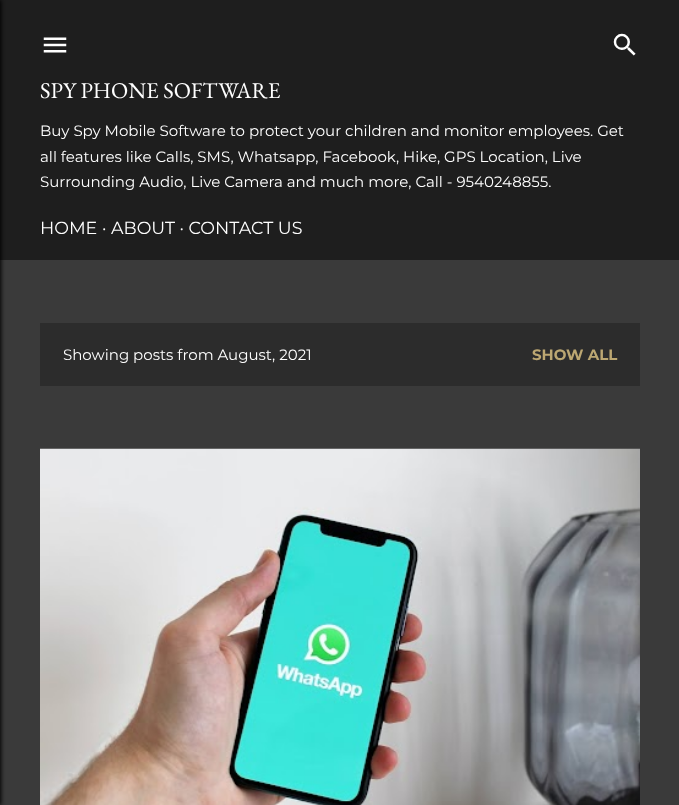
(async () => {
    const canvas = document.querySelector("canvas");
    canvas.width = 679;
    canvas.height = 805;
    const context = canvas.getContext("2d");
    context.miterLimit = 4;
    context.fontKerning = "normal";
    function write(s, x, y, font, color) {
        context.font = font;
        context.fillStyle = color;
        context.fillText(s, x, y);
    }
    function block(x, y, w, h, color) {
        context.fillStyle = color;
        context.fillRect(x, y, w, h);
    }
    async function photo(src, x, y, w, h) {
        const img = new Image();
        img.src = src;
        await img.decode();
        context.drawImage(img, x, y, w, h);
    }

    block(0, 0, 679, 805, "rgb(58, 58, 58)");
    block(0, 0, 679, 260, "rgb(30, 30, 30)");
    context.fillStyle = "rgb(0, 0, 0)";
    context.filter = "blur(2px)";
    context.beginPath();
    context.rect(-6, 0, 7, 805);
    context.fill();
    context.filter = "none";
    await photo("media/1.png", 43, 37, 24, 16);
    await photo("media/2.png", 613, 33, 23, 23);
    write("SPY PHONE SOFTWARE", 40, 98, "22.5px EB Garamond", "rgb(255, 255, 255)");
    write("Buy Spy Mobile Software to protect your children and monitor employees. Get", 40, 136, "15px Montserrat", "rgb(255, 255, 255)");
    write("all features like Calls, SMS, Whatsapp, Facebook, Hike, GPS Location, Live", 40, 162, "15px Montserrat", "rgb(255, 255, 255)");
    write("Surrounding Audio, Live Camera and much more, Call - 9540248855.", 40, 187, "15px Montserrat", "rgb(255, 255, 255)");
    write("HOME · ABOUT · CONTACT US", 40, 234, "17.5px Montserrat", "rgb(255, 255, 255)");
    block(40, 323, 600, 63, "rgb(44, 44, 44)");
    write("Showing posts from August, 2021", 63, 360, "15px Montserrat", "rgb(255, 255, 255)");
    write("SHOW ALL", 532, 360, "bold 15px Montserrat", "rgb(188, 167, 114)");
    await photo("media/3.png", 40, 448, 600, 357);
})();
